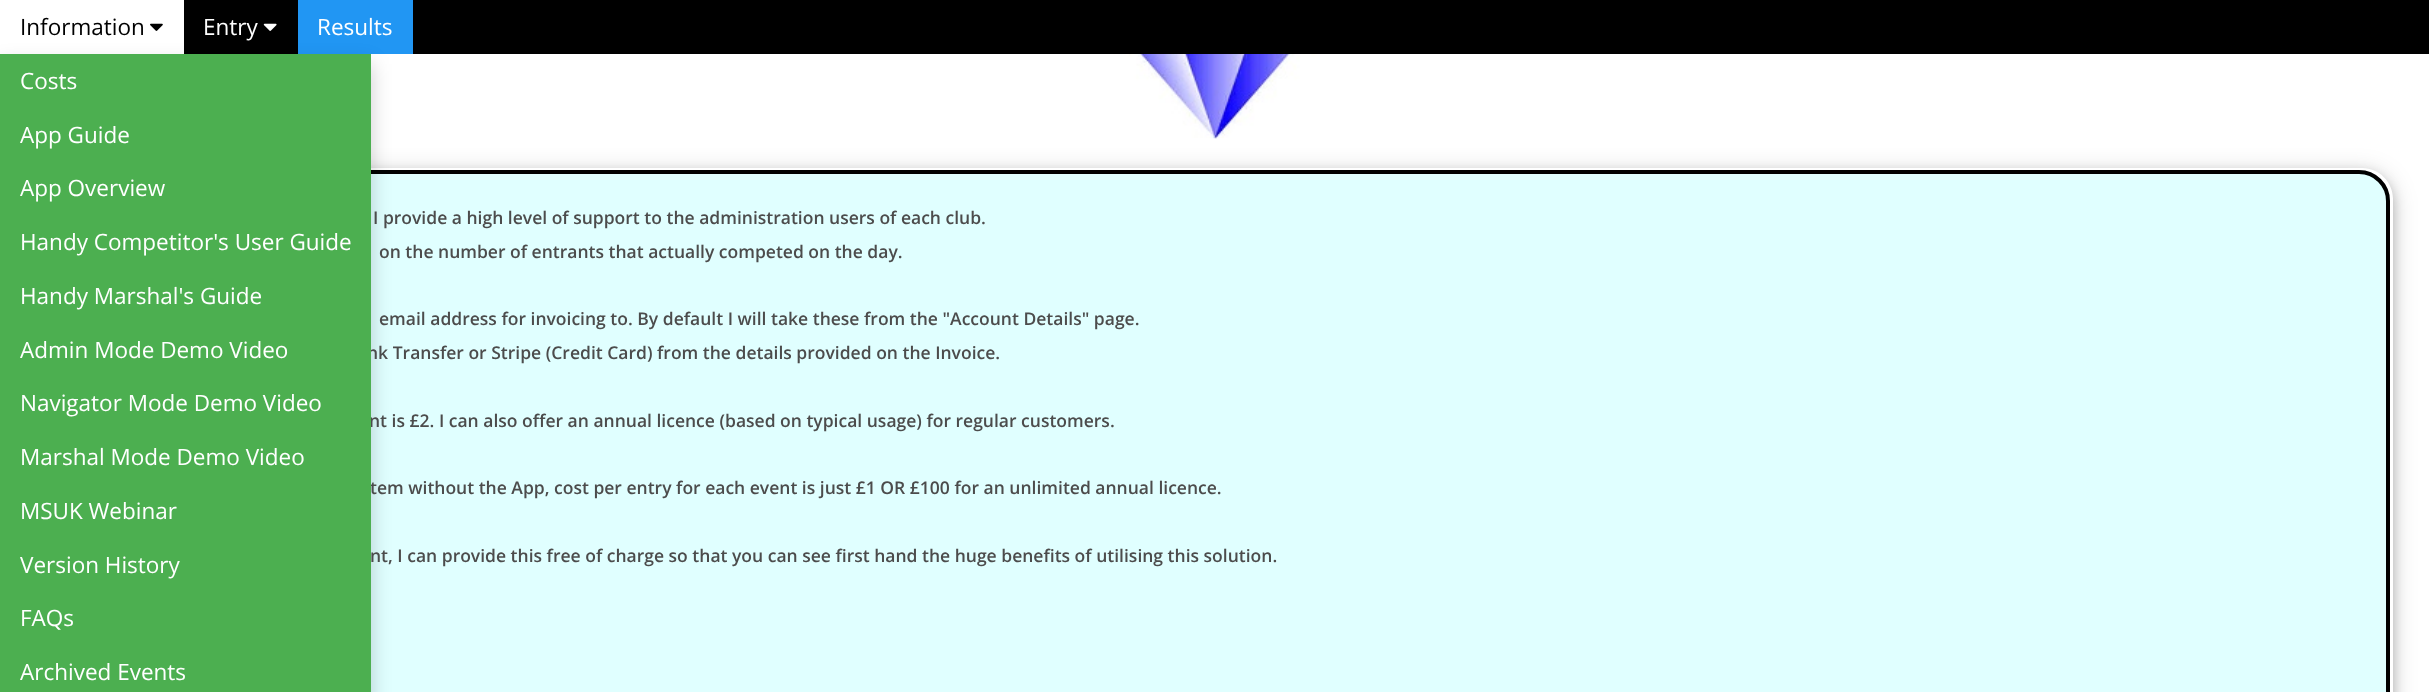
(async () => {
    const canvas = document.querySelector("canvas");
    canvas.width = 2429;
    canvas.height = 692;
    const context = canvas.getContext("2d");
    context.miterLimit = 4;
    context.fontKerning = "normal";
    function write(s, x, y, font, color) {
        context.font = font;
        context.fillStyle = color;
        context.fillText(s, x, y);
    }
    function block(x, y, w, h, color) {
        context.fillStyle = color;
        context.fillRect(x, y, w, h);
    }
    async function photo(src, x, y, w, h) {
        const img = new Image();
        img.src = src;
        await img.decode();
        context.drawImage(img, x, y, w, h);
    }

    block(0, 0, 2429, 692, "rgb(255, 255, 255)");
    block(184, 0, 2245, 54, "rgb(0, 0, 0)");
    write("Information", 20, 35, "22.5px Open Sans", "rgb(0, 0, 0)");
    await photo("media/1.png", 150, 23, 13, 8);
    block(298, 0, 115, 54, "rgb(33, 150, 243)");
    context.save();
    context.beginPath();
    context.moveTo(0, 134);
    context.lineTo(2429, 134);
    context.lineTo(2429, 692);
    context.lineTo(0, 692);
    context.closePath();
    context.moveTo(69, 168);
    context.lineTo(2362, 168);
    context.bezierCurveTo(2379, 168, 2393, 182, 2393, 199);
    context.lineTo(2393, 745);
    context.bezierCurveTo(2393, 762, 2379, 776, 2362, 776);
    context.lineTo(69, 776);
    context.bezierCurveTo(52, 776, 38, 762, 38, 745);
    context.lineTo(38, 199);
    context.bezierCurveTo(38, 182, 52, 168, 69, 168);
    context.closePath();
    context.clip("evenodd");
    context.fillStyle = "rgba(0, 0, 0, 0.19)";
    context.filter = "blur(12.5px)";
    context.beginPath();
    context.roundRect(38, 173, 2355, 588, 31);
    context.fill();
    context.filter = "none";
    context.restore();
    context.save();
    context.beginPath();
    context.moveTo(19, 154);
    context.lineTo(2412, 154);
    context.lineTo(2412, 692);
    context.lineTo(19, 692);
    context.closePath();
    context.moveTo(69, 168);
    context.lineTo(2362, 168);
    context.bezierCurveTo(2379, 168, 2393, 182, 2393, 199);
    context.lineTo(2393, 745);
    context.bezierCurveTo(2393, 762, 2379, 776, 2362, 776);
    context.lineTo(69, 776);
    context.bezierCurveTo(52, 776, 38, 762, 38, 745);
    context.lineTo(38, 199);
    context.bezierCurveTo(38, 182, 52, 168, 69, 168);
    context.closePath();
    context.clip("evenodd");
    context.fillStyle = "rgba(0, 0, 0, 0.2)";
    context.filter = "blur(6px)";
    context.beginPath();
    context.roundRect(38, 173, 2355, 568, 31);
    context.fill();
    context.filter = "none";
    context.restore();
    context.fillStyle = "rgb(224, 255, 255)";
    context.beginPath();
    context.roundRect(42, 172, 2346, 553, 29);
    context.fill();
    context.strokeStyle = "rgb(0, 0, 0)";
    context.lineWidth = 4;
    context.stroke();
    context.fillStyle = "rgba(0, 0, 0, 0.2)";
    context.filter = "blur(10px)";
    context.beginPath();
    context.rect(0, 64, 371, 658);
    context.fill();
    context.filter = "none";
    write("nk Transfer or Stripe (Credit Card) from the details provided on the Invoice.", 367, 359, "600 17.5px Open Sans", "rgb(76, 76, 76)");
    write("nt is £2. I can also offer an annual licence (based on typical usage) for regular customers.", 369, 427, "600 17.5px Open Sans", "rgb(76, 76, 76)");
    write("tem without the App, cost per entry for each event is just £1 OR £100 for an unlimited annual licence.", 370, 494, "600 17.5px Open Sans", "rgb(76, 76, 76)");
    block(0, 54, 371, 638, "rgb(76, 175, 80)");
    write("Costs", 20, 89, "22.5px Open Sans", "rgb(255, 255, 255)");
    write("App Guide", 20, 143, "22.5px Open Sans", "rgb(255, 255, 255)");
    write("App Overview", 20, 196, "22.5px Open Sans", "rgb(255, 255, 255)");
    write("Handy Competitor's User Guide", 20, 250, "22.5px Open Sans", "rgb(255, 255, 255)");
    write("Handy Marshal's Guide", 20, 304, "22.5px Open Sans", "rgb(255, 255, 255)");
    write("Admin Mode Demo Video", 20, 358, "22.5px Open Sans", "rgb(255, 255, 255)");
    write("Navigator Mode Demo Video", 20, 411, "22.5px Open Sans", "rgb(255, 255, 255)");
    write("Marshal Mode Demo Video", 20, 465, "22.5px Open Sans", "rgb(255, 255, 255)");
    write("MSUK Webinar", 20, 519, "22.5px Open Sans", "rgb(255, 255, 255)");
    write("Version History", 20, 573, "22.5px Open Sans", "rgb(255, 255, 255)");
    write("FAQs", 20, 626, "22.5px Open Sans", "rgb(255, 255, 255)");
    write("Archived Events", 20, 680, "22.5px Open Sans", "rgb(255, 255, 255)");
    write("Results", 317, 35, "22.5px Open Sans", "rgb(255, 255, 255)");
    write("Entry", 203, 35, "22.5px Open Sans", "rgb(255, 255, 255)");
    await photo("media/2.png", 263, 23, 14, 8);
    await photo("media/3.png", 1090, 54, 243, 85);
    write("I provide a high level of support to the administration users of each club.", 373, 224, "600 17.5px Open Sans", "rgb(76, 76, 76)");
    write("on the number of entrants that actually competed on the day.", 379, 258, "600 17.5px Open Sans", "rgb(76, 76, 76)");
    write("email address for invoicing to. By default I will take these from the \"Account Details\" page.", 379, 325, "600 17.5px Open Sans", "rgb(76, 76, 76)");
    write("nt, I can provide this free of charge so that you can see first hand the huge benefits of utilising this solution.", 370, 562, "600 17.5px Open Sans", "rgb(76, 76, 76)");
})();
